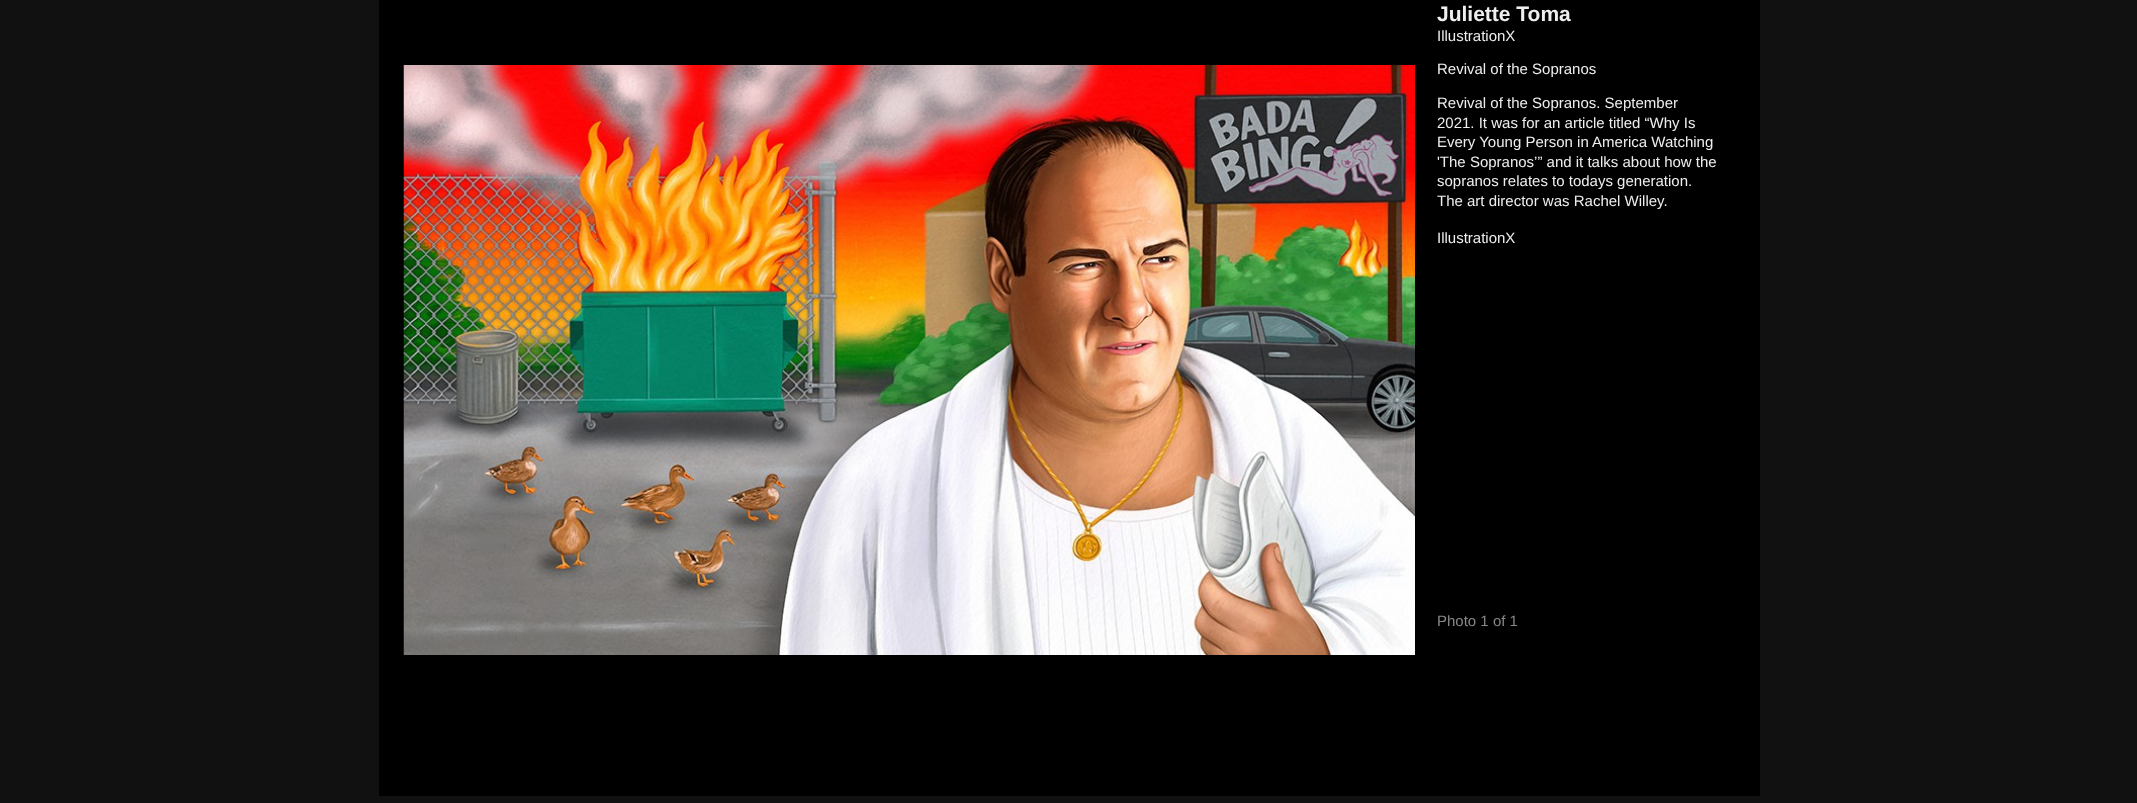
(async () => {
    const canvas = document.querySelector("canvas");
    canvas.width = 2137;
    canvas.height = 803;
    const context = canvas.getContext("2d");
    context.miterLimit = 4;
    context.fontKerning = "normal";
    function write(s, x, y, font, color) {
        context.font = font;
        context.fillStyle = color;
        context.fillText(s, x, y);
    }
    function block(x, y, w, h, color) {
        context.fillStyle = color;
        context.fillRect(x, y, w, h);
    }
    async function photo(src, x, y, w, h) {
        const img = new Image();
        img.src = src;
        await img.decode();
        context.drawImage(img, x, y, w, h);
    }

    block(0, 0, 2137, 803, "rgb(17, 17, 17)");
    block(379, 0, 1381, 796, "rgb(0, 0, 0)");
    await photo("media/1.png", 403, 65, 1012, 590);
    write("Juliette Toma", 1437, 21, "bold 21px Liberation Sans", "rgb(238, 238, 238)");
    write("IllustrationX", 1437, 41, "15px Liberation Sans", "rgb(238, 238, 238)");
    write("Revival of the Sopranos", 1437, 74, "15px Liberation Sans", "rgb(238, 238, 238)");
    write("Revival of the Sopranos. September", 1437, 108, "15px Liberation Sans", "rgb(238, 238, 238)");
    write("2021. It was for an article titled “Why Is", 1437, 128, "15px Liberation Sans", "rgb(238, 238, 238)");
    write("Every Young Person in America Watching", 1437, 147, "15px Liberation Sans", "rgb(238, 238, 238)");
    write("'The Sopranos’” and it talks about how the", 1437, 167, "15px Liberation Sans", "rgb(238, 238, 238)");
    write("sopranos relates to todays generation.", 1437, 186, "15px Liberation Sans", "rgb(238, 238, 238)");
    write("The art director was Rachel Willey.", 1437, 206, "15px Liberation Sans", "rgb(238, 238, 238)");
    write("IllustrationX", 1437, 243, "15px Liberation Sans", "rgb(238, 238, 238)");
    write("Photo 1 of 1", 1437, 626, "15px Liberation Sans", "rgb(136, 136, 136)");
})();
